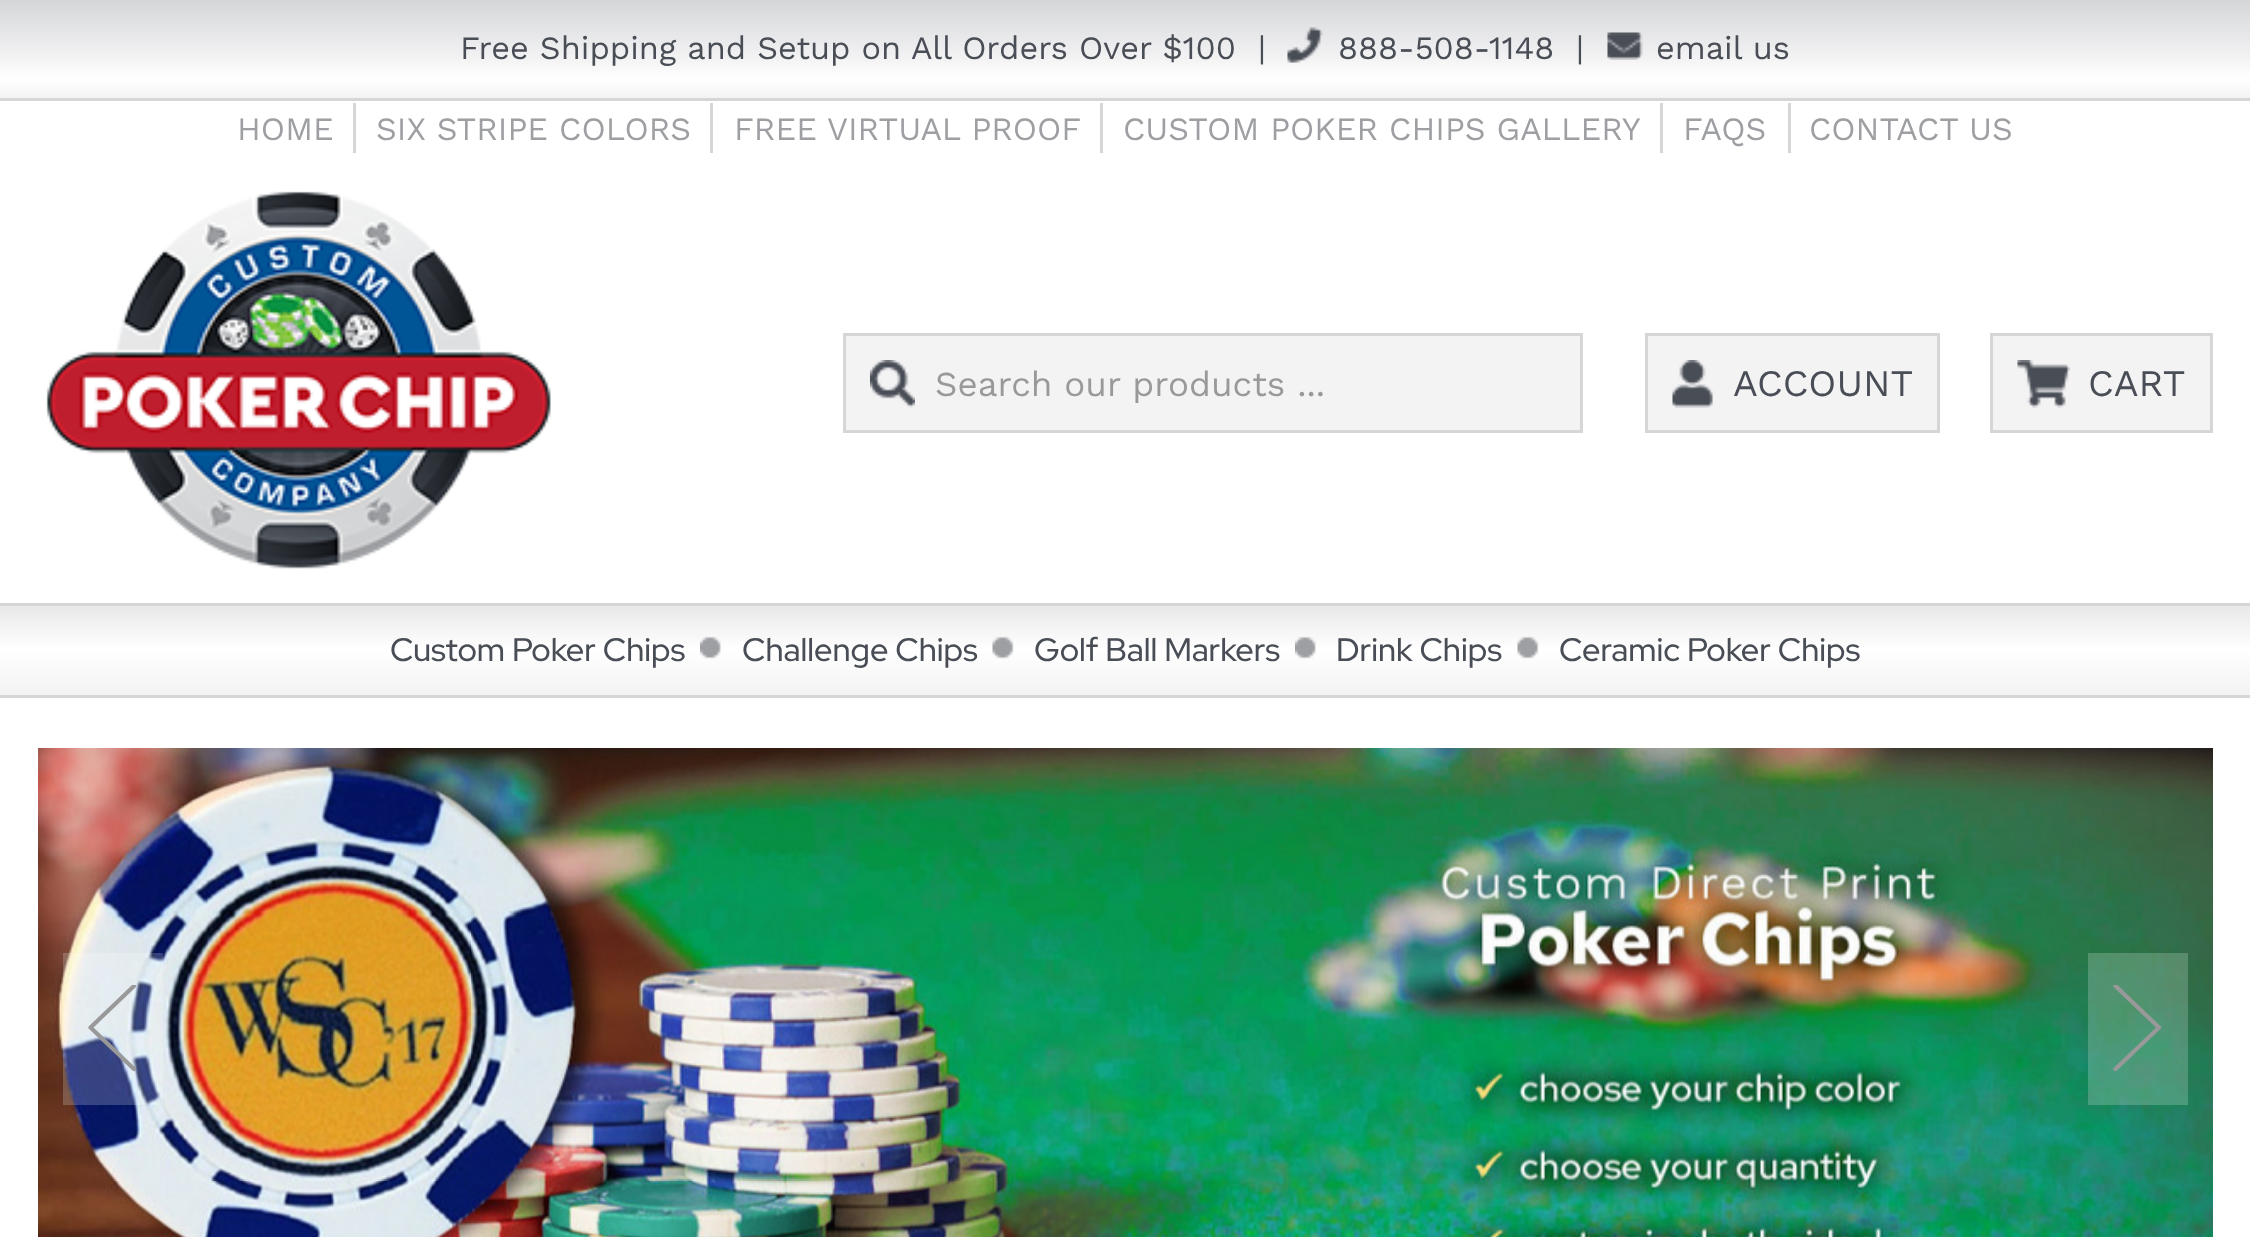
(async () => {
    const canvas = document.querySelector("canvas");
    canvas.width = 2250;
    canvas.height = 1237;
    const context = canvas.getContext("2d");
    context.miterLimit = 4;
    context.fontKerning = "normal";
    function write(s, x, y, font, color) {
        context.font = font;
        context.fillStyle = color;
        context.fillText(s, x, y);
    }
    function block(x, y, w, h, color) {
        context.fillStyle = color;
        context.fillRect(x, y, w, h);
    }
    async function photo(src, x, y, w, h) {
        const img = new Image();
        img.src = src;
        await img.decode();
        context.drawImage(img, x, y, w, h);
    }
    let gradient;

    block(0, 0, 2250, 1237, "rgb(255, 255, 255)");
    gradient = context.createLinearGradient(1125, 0, 1125, 98);
    gradient.addColorStop(0, "rgb(213, 214, 216)");
    gradient.addColorStop(0.6, "rgb(243, 243, 244)");
    gradient.addColorStop(0.8, "rgb(255, 255, 255)");
    gradient.addColorStop(1, "rgb(243, 243, 244)");
    context.fillStyle = gradient;
    context.fillRect(0, 0, 2250, 98);
    block(0, 98, 2250, 3, "rgb(213, 214, 216)");
    write("Free Shipping and Setup on All Orders Over $100", 460, 59, "32.5px Work Sans", "rgb(73, 77, 85)");
    write("|", 1258, 59, "32.5px Work Sans", "rgb(73, 77, 85)");
    await photo("media/1.png", 1287, 27, 36, 36);
    write("888-508-1148", 1338, 59, "32.5px Work Sans", "rgb(73, 77, 85)");
    write("|", 1576, 59, "32.5px Work Sans", "rgb(73, 77, 85)");
    await photo("media/2.png", 1607, 32, 36, 28);
    write("email us", 1656, 59, "32.5px Work Sans", "rgb(73, 77, 85)");
    block(353, 103, 3, 50, "rgb(213, 214, 216)");
    write("HOME", 237, 140, "32.5px Work Sans", "rgb(157, 159, 162)");
    block(710, 103, 3, 50, "rgb(213, 214, 216)");
    write("SIX STRIPE COLORS", 376, 140, "32.5px Work Sans", "rgb(157, 159, 162)");
    block(1100, 103, 3, 50, "rgb(213, 214, 216)");
    write("FREE VIRTUAL PROOF", 734, 140, "32.5px Work Sans", "rgb(157, 159, 162)");
    block(1660, 103, 3, 50, "rgb(213, 214, 216)");
    write("CUSTOM POKER CHIPS GALLERY", 1123, 140, "32.5px Work Sans", "rgb(157, 159, 162)");
    block(1788, 103, 3, 50, "rgb(213, 214, 216)");
    write("FAQS", 1683, 140, "32.5px Work Sans", "rgb(157, 159, 162)");
    write("CONTACT US", 1809, 140, "32.5px Work Sans", "rgb(157, 159, 162)");
    await photo("media/3.png", 46, 191, 505, 378);
    block(846, 336, 734, 94, "rgb(243, 243, 244)");
    await photo("media/4.png", 870, 360, 45, 48);
    context.strokeStyle = "rgb(213, 214, 216)";
    context.lineWidth = 3;
    context.strokeRect(844.5, 334.5, 737, 97);
    context.save();
    context.beginPath();
    context.rect(935, 363, 615, 40);
    context.clip();
    write("Search our products ...", 935, 396, "35px Work Sans", "rgb(153, 153, 153)");
    context.restore();
    context.beginPath();
    context.rect(1646.5, 334.5, 292, 97);
    context.fill();
    context.stroke();
    await photo("media/5.png", 1672, 360, 41, 48);
    write("ACCOUNT", 1733, 396, "37.5px Work Sans", "rgb(73, 77, 85)");
    context.fillStyle = "rgb(243, 243, 244)";
    context.beginPath();
    context.rect(1991.5, 334.5, 220, 97);
    context.fill();
    context.stroke();
    await photo("media/6.png", 2017, 360, 53, 48);
    write("CART", 2088, 396, "37.5px Work Sans", "rgb(73, 77, 85)");
    gradient = context.createLinearGradient(1125, 605, 1125, 695);
    gradient.addColorStop(0, "rgb(232, 232, 233)");
    gradient.addColorStop(0.5, "rgb(255, 255, 255)");
    gradient.addColorStop(1, "rgb(243, 243, 244)");
    context.fillStyle = gradient;
    context.fillRect(0, 606, 2250, 89);
    block(0, 603, 2250, 3, "rgb(213, 214, 216)");
    block(0, 695, 2250, 3, "rgb(213, 214, 216)");
    write("Custom Poker Chips", 390, 661, "500 32.5px Red Hat Display", "rgb(73, 77, 85)");
    await photo("media/7.png", 700, 636, 21, 23);
    write("Challenge Chips", 742, 661, "500 32.5px Red Hat Display", "rgb(73, 77, 85)");
    await photo("media/8.png", 992, 636, 22, 23);
    write("Golf Ball Markers", 1034, 661, "500 32.5px Red Hat Display", "rgb(73, 77, 85)");
    await photo("media/7.png", 1295, 636, 21, 23);
    write("Drink Chips", 1336, 661, "500 32.5px Red Hat Display", "rgb(73, 77, 85)");
    await photo("media/9.png", 1517, 636, 22, 23);
    write("Ceramic Poker Chips", 1559, 661, "500 32.5px Red Hat Display", "rgb(73, 77, 85)");
    await photo("media/10.png", 38, 748, 2175, 489);
    block(63, 953, 100, 152, "rgba(255, 255, 255, 0.2)");
    context.save();
    context.beginPath();
    context.rect(88, 985, 50, 88);
    context.clip();
    context.beginPath();
    context.moveTo(134, 986);
    context.lineTo(90.5, 1027.5);
    context.lineTo(134, 1069);
    context.strokeStyle = "rgb(153, 153, 153)";
    context.lineWidth = 4.2;
    context.lineCap = "round";
    context.lineJoin = "round";
    context.stroke();
    context.restore();
    block(2088, 953, 100, 152, "rgba(255, 255, 255, 0.2)");
    context.save();
    context.beginPath();
    context.rect(2113, 985, 50, 88);
    context.clip();
    context.beginPath();
    context.moveTo(2115.5, 986);
    context.lineTo(2159, 1027.5);
    context.lineTo(2115.5, 1069);
    context.strokeStyle = "rgb(153, 153, 153)";
    context.lineWidth = 4.2;
    context.lineCap = "round";
    context.lineJoin = "round";
    context.stroke();
    context.restore();
})();
